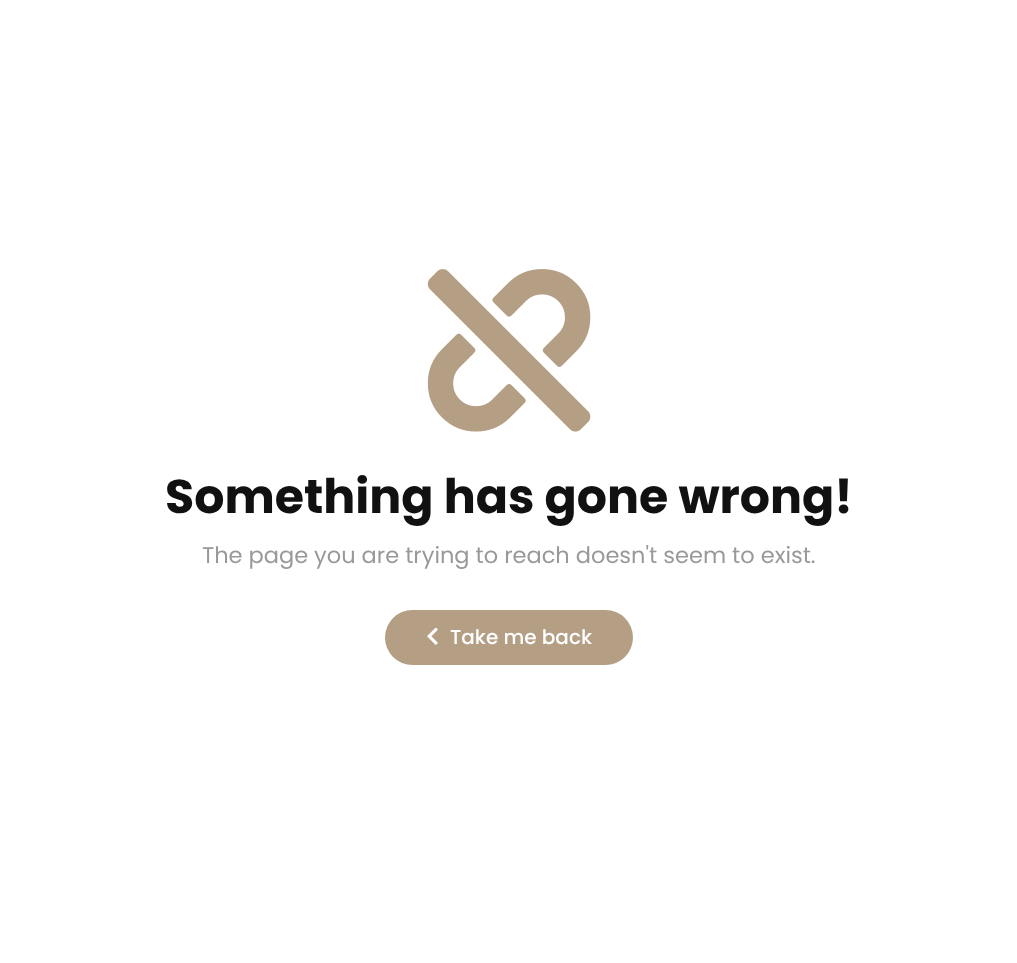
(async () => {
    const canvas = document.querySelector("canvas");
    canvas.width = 1017;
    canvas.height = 963;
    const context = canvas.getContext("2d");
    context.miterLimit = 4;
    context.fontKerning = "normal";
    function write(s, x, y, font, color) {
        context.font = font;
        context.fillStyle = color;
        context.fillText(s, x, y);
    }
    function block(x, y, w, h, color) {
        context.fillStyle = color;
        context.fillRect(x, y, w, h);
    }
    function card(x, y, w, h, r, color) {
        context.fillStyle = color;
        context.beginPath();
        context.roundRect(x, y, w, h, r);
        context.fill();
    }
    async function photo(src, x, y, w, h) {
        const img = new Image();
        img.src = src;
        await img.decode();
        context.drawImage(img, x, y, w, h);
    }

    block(0, 0, 1017, 963, "rgb(255, 255, 255)");
    await photo("media/1.png", 427, 269, 164, 163);
    write("Something has gone wrong!", 165, 513, "bold 47.5px Poppins", "rgb(17, 17, 17)");
    write("The page you are trying to reach doesn't seem to exist.", 202, 563, "22.5px Poppins", "rgb(153, 153, 153)");
    card(385, 610, 248, 55, 27.5, "rgb(181, 159, 132)");
    await photo("media/2.png", 427, 627, 11, 18);
    write("Take me back", 450, 644, "500 20px Poppins", "rgb(255, 255, 255)");
})();
